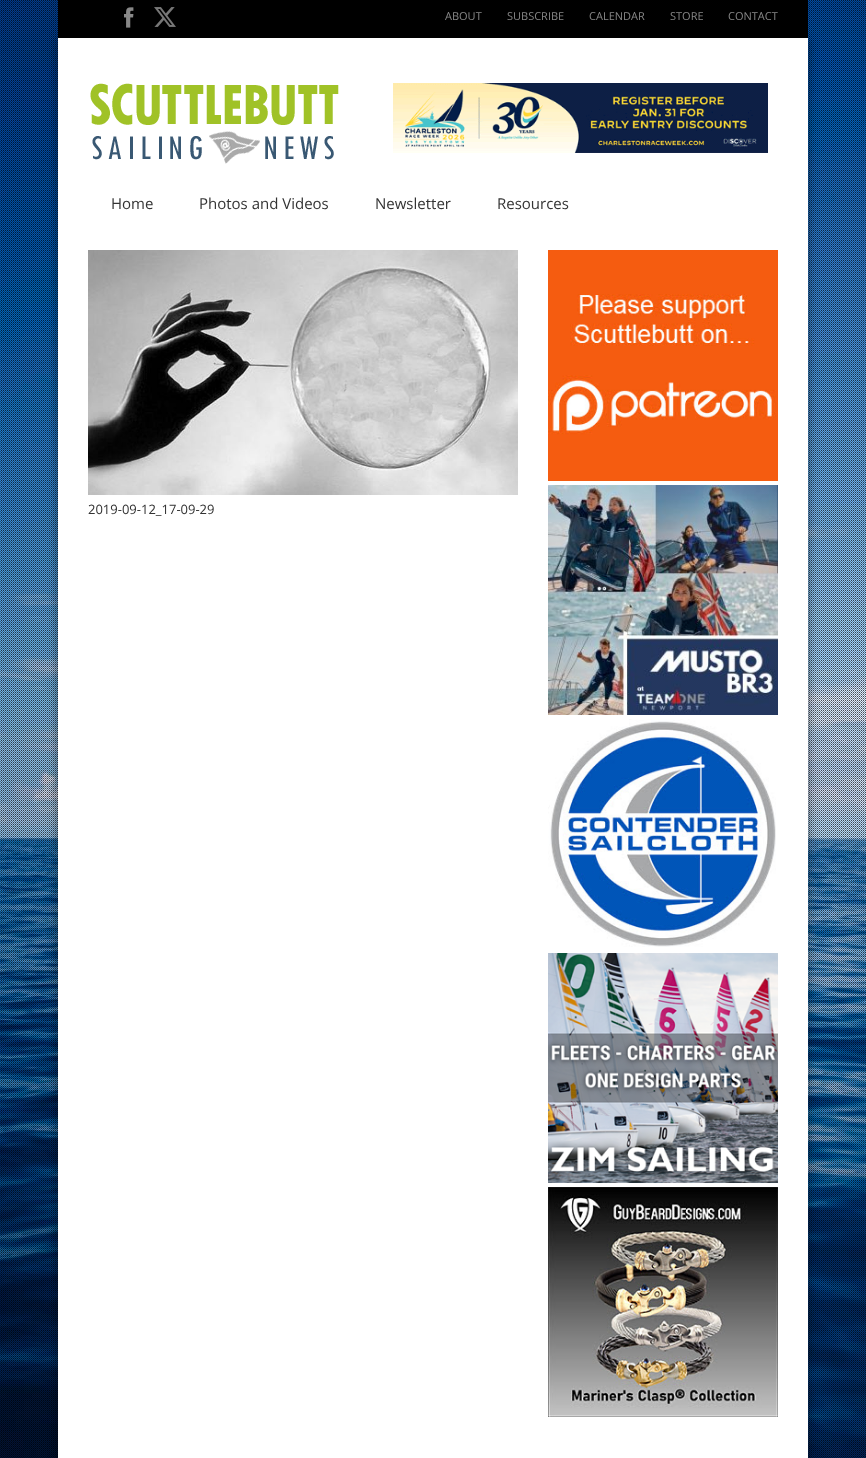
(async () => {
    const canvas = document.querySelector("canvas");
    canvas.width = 866;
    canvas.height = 1458;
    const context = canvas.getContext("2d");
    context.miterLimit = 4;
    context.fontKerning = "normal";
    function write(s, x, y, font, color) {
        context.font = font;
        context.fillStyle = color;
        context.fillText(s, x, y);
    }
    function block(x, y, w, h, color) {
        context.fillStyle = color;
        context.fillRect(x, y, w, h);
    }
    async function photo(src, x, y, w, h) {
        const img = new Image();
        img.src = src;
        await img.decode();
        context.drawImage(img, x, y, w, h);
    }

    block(0, 0, 866, 1458, "rgb(255, 255, 255)");
    await photo("media/1.png", 0, 0, 866, 1458);
    await photo("media/3.png", 6, 513, 860, 726);
    await photo("media/2.png", 0, 0, 866, 1458);
    block(58, 0, 750, 38, "rgb(0, 0, 0)");
    context.fillStyle = "rgba(0, 0, 0, 0.5)";
    context.filter = "blur(5px)";
    context.beginPath();
    context.rect(58, 38, 750, 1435);
    context.fill();
    context.filter = "none";
    await photo("media/4.png", 124, 7, 10, 21);
    await photo("media/5.png", 154, 7, 22, 20);
    write("ABOUT", 445, 20, "11px Open Sans", "rgb(136, 136, 136)");
    write("SUBSCRIBE", 507, 20, "11px Open Sans", "rgb(136, 136, 136)");
    write("CALENDAR", 589, 20, "11px Open Sans", "rgb(136, 136, 136)");
    write("STORE", 670, 20, "11px Open Sans", "rgb(136, 136, 136)");
    write("CONTACT", 728, 20, "11px Open Sans", "rgb(136, 136, 136)");
    block(58, 38, 750, 1420, "rgb(255, 255, 255)");
    await photo("media/6.png", 90, 83, 249, 81);
    await photo("media/7.png", 393, 83, 375, 70);
    write("Home", 111, 209, "15px Open Sans", "rgb(51, 51, 51)");
    write("Photos and Videos", 199, 209, "15px Open Sans", "rgb(51, 51, 51)");
    write("Newsletter", 375, 209, "15px Open Sans", "rgb(51, 51, 51)");
    write("Resources", 497, 209, "15px Open Sans", "rgb(51, 51, 51)");
    await photo("media/8.png", 88, 250, 430, 245);
    write("2019-09-12_17-09-29", 88, 514, "13px Open Sans", "rgb(51, 51, 51)");
    await photo("media/9.png", 548, 250, 230, 231);
    await photo("media/10.png", 548, 485, 230, 230);
    await photo("media/11.png", 548, 719, 228, 228);
    await photo("media/12.png", 548, 953, 230, 230);
    await photo("media/13.png", 548, 1187, 230, 230);
})();
